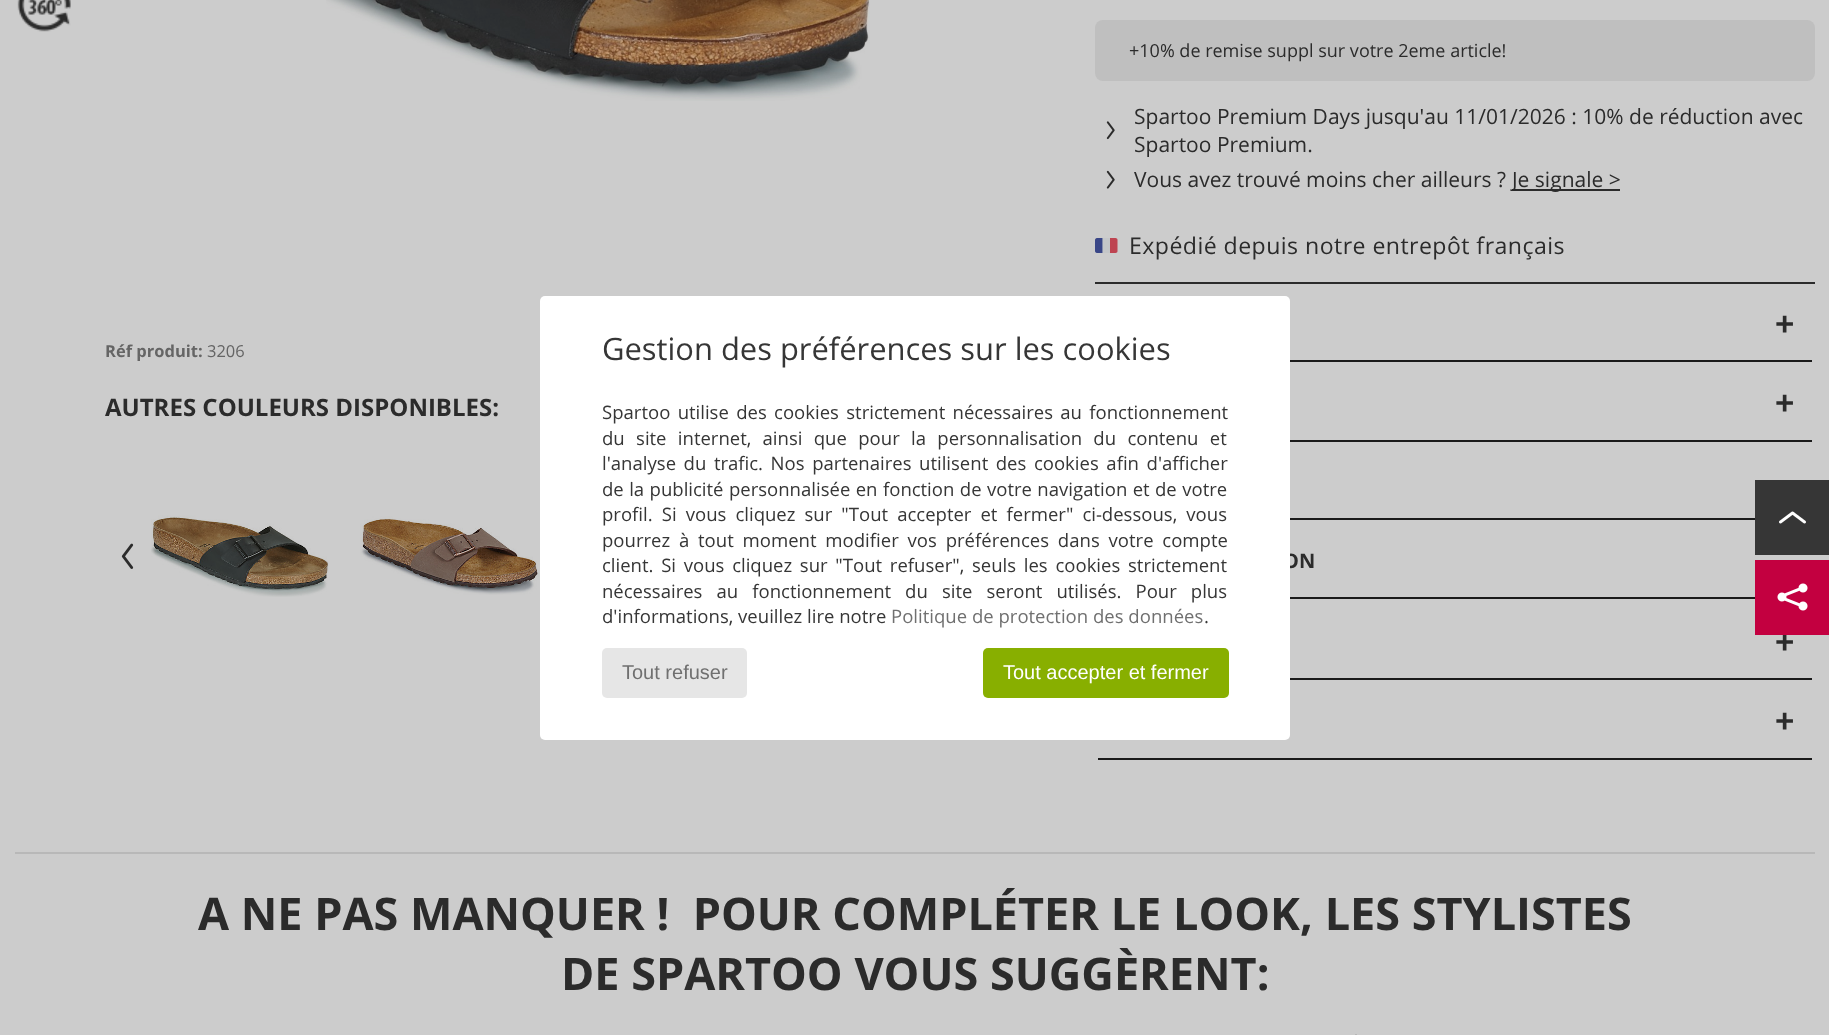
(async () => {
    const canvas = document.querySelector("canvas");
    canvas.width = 1829;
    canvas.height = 1035;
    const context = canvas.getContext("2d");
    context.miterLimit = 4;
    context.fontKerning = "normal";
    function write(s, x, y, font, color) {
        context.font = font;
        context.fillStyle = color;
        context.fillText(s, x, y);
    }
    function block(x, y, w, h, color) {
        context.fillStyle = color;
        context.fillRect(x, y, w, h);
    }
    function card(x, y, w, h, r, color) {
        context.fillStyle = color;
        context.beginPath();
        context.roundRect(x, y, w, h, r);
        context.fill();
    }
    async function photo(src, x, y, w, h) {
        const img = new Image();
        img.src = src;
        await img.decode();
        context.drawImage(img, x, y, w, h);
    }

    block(0, 0, 1829, 1035, "rgb(204, 204, 204)");
    await photo("media/1.png", 17, 0, 54, 32);
    await photo("media/2.png", 326, 0, 544, 101);
    write("Réf produit:", 105, 357, "bold 16.5px Open Sans", "rgb(101, 101, 101)");
    write("3206", 207, 357, "16.5px Open Sans", "rgb(101, 101, 101)");
    write("AUTRES COULEURS DISPONIBLES:", 105, 416, "bold 24px Open Sans", "rgb(43, 43, 43)");
    await photo("media/3.png", 121, 543, 13, 26);
    await photo("media/4.png", 151, 515, 178, 82);
    await photo("media/5.png", 360, 516, 179, 79);
    block(1095, 282, 720, 2, "rgb(43, 43, 43)");
    card(1095, 20, 720, 61, 8, "rgb(191, 191, 191)");
    write("+10% de remise suppl sur votre 2eme article!", 1129, 57, "18px Open Sans", "rgb(43, 43, 43)");
    await photo("media/6.png", 1106, 121, 9, 19);
    write("Spartoo Premium Days jusqu'au 11/01/2026 : 10% de réduction avec", 1134, 124, "21px Open Sans", "rgb(43, 43, 43)");
    write("Spartoo Premium.", 1134, 152, "21px Open Sans", "rgb(43, 43, 43)");
    await photo("media/7.png", 1106, 170, 9, 19);
    write("Vous avez trouvé moins cher ailleurs ?", 1134, 187, "21px Open Sans", "rgb(43, 43, 43)");
    block(1512, 189, 108, 2, "rgb(43, 43, 43)");
    write("Je signale >", 1512, 187, "21px Open Sans", "rgb(43, 43, 43)");
    await photo("media/8.png", 1095, 238, 23, 15);
    context.letterSpacing = "0.45px";
    write("Expédié depuis notre entrepôt français", 1129, 254, "23.1px Open Sans", "rgb(43, 43, 43)");
    block(1290, 360, 522, 2, "rgb(26, 26, 26)");
    context.letterSpacing = "0px";
    write("+", 1775, 335, "bold 33px Liberation Sans", "rgb(43, 43, 43)");
    block(1290, 440, 522, 2, "rgb(26, 26, 26)");
    write("+", 1775, 414, "bold 33px Liberation Sans", "rgb(43, 43, 43)");
    block(1290, 518, 465, 2, "rgb(26, 26, 26)");
    block(1290, 597, 465, 2, "rgb(26, 26, 26)");
    write("ON", 1283, 568, "bold 20px Open Sans", "rgb(43, 43, 43)");
    block(1290, 678, 522, 2, "rgb(26, 26, 26)");
    write("+", 1775, 653, "bold 33px Liberation Sans", "rgb(43, 43, 43)");
    block(1098, 758, 714, 2, "rgb(26, 26, 26)");
    write("+", 1775, 732, "bold 33px Liberation Sans", "rgb(43, 43, 43)");
    block(15, 852, 1800, 2, "rgb(184, 184, 184)");
    write("A NE PAS MANQUER !  POUR COMPLÉTER LE LOOK, LES STYLISTES", 198, 930, "bold 45px Open Sans", "rgb(43, 43, 43)");
    write("DE SPARTOO VOUS SUGGÈRENT:", 561, 990, "bold 45px Open Sans", "rgb(43, 43, 43)");
    block(1355, 1034, 2, 1, "rgb(184, 184, 184)");
    card(540, 296, 750, 444, 5, "rgb(255, 255, 255)");
    write("Gestion des préférences sur les cookies", 602, 360, "30.9px Open Sans", "rgb(54, 54, 54)");
    context.wordSpacing = "2.5px";
    write("Spartoo utilise des cookies strictement nécessaires au fonctionnement", 602, 419, "18.55px Open Sans", "rgb(54, 54, 54)");
    context.wordSpacing = "6.5px";
    write("du site internet, ainsi que pour la personnalisation du contenu et", 602, 445, "18.55px Open Sans", "rgb(54, 54, 54)");
    context.wordSpacing = "2.75px";
    write("l'analyse du trafic. Nos partenaires utilisent des cookies afin d'afficher", 602, 470, "18.55px Open Sans", "rgb(54, 54, 54)");
    context.wordSpacing = "0.6px";
    write("de la publicité personnalisée en fonction de votre navigation et de votre", 602, 496, "18.55px Open Sans", "rgb(54, 54, 54)");
    context.wordSpacing = "4.25px";
    write("profil. Si vous cliquez sur \"Tout accepter et fermer\" ci-dessous, vous", 602, 521, "18.55px Open Sans", "rgb(54, 54, 54)");
    context.wordSpacing = "4px";
    write("pourrez à tout moment modifier vos préférences dans votre compte", 602, 547, "18.55px Open Sans", "rgb(54, 54, 54)");
    context.wordSpacing = "2.9px";
    write("client. Si vous cliquez sur \"Tout refuser\", seuls les cookies strictement", 602, 572, "18.55px Open Sans", "rgb(54, 54, 54)");
    context.wordSpacing = "9.25px";
    write("nécessaires au fonctionnement du site seront utilisés. Pour plus", 602, 598, "18.55px Open Sans", "rgb(54, 54, 54)");
    context.wordSpacing = "0px";
    write("d'informations, veuillez lire notre", 602, 623, "18.55px Open Sans", "rgb(54, 54, 54)");
    write("Politique de protection des données", 891, 623, "18.55px Open Sans", "rgb(112, 112, 112)");
    write(".", 1204, 623, "18.55px Open Sans", "rgb(54, 54, 54)");
    card(602, 648, 145, 50, 5, "rgb(230, 230, 230)");
    write("Tout refuser", 622, 679, "20px Liberation Sans", "rgb(112, 112, 112)");
    card(983, 648, 246, 50, 5, "rgb(136, 175, 0)");
    write("Tout accepter et fermer", 1003, 679, "20px Liberation Sans", "rgb(255, 255, 255)");
    block(1755, 480, 74, 75, "rgb(54, 54, 54)");
    await photo("media/9.png", 1779, 511, 27, 13);
    block(1755, 560, 74, 75, "rgb(195, 0, 64)");
    await photo("media/10.png", 1777, 583, 31, 28);
})();
